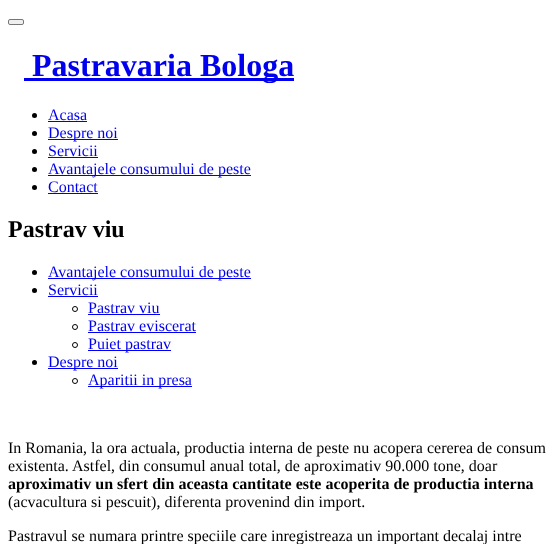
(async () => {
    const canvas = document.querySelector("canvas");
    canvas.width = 556;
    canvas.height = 544;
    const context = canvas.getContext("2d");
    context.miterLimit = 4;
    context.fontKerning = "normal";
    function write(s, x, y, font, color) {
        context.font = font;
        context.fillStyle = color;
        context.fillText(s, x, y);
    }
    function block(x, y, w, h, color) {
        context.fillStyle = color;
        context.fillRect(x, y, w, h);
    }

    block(0, 0, 556, 544, "rgb(255, 255, 255)");
    context.fillStyle = "rgb(239, 239, 239)";
    context.beginPath();
    context.roundRect(8.5, 19.5, 15, 5, 1.5);
    context.fill();
    context.strokeStyle = "rgb(118, 118, 118)";
    context.stroke();
    block(24, 78, 270, 3, "rgb(0, 0, 238)");
    write("Pastravaria Bologa", 32, 76, "bold 32px Liberation Serif", "rgb(0, 0, 238)");
    context.fillStyle = "rgb(0, 0, 0)";
    context.beginPath();
    context.arc(34.5, 115.5, 2.5, 0, Math.PI * 2);
    context.fill();
    write("Acasa", 48, 120, "16px Liberation Serif", "rgb(0, 0, 238)");
    block(48, 121, 39, 1, "rgb(0, 0, 238)");
    context.fillStyle = "rgb(0, 0, 0)";
    context.beginPath();
    context.arc(34.5, 133.5, 2.5, 0, Math.PI * 2);
    context.fill();
    block(48, 139, 70, 1, "rgb(0, 0, 238)");
    write("Despre noi", 48, 138, "16px Liberation Serif", "rgb(0, 0, 238)");
    context.fillStyle = "rgb(0, 0, 0)";
    context.beginPath();
    context.arc(34.5, 151.5, 2.5, 0, Math.PI * 2);
    context.fill();
    write("Servicii", 48, 156, "16px Liberation Serif", "rgb(0, 0, 238)");
    block(48, 157, 50, 1, "rgb(0, 0, 238)");
    context.fillStyle = "rgb(0, 0, 0)";
    context.beginPath();
    context.arc(34.5, 169.5, 2.5, 0, Math.PI * 2);
    context.fill();
    block(48, 175, 203, 1, "rgb(0, 0, 238)");
    write("Avantajele consumului de peste", 48, 174, "16px Liberation Serif", "rgb(0, 0, 238)");
    context.fillStyle = "rgb(0, 0, 0)";
    context.beginPath();
    context.arc(34.5, 187.5, 2.5, 0, Math.PI * 2);
    context.fill();
    write("Contact", 48, 192, "16px Liberation Serif", "rgb(0, 0, 238)");
    block(48, 193, 50, 1, "rgb(0, 0, 238)");
    write("Pastrav viu", 8, 237, "bold 24px Liberation Serif", "rgb(0, 0, 0)");
    context.beginPath();
    context.arc(34.5, 272.5, 2.5, 0, Math.PI * 2);
    context.fill();
    block(48, 278, 203, 1, "rgb(0, 0, 238)");
    write("Avantajele consumului de peste", 48, 277, "16px Liberation Serif", "rgb(0, 0, 238)");
    context.fillStyle = "rgb(0, 0, 0)";
    context.beginPath();
    context.arc(34.5, 290.5, 2.5, 0, Math.PI * 2);
    context.fill();
    write("Servicii", 48, 295, "16px Liberation Serif", "rgb(0, 0, 238)");
    block(48, 296, 50, 1, "rgb(0, 0, 238)");
    context.beginPath();
    context.arc(75, 309, 2.5, 0, Math.PI * 2);
    context.strokeStyle = "rgb(0, 0, 0)";
    context.stroke();
    write("Pastrav viu", 88, 313, "16px Liberation Serif", "rgb(0, 0, 238)");
    block(88, 314, 72, 1, "rgb(0, 0, 238)");
    context.beginPath();
    context.arc(75, 327, 2.5, 0, Math.PI * 2);
    context.stroke();
    write("Pastrav eviscerat", 88, 331, "16px Liberation Serif", "rgb(0, 0, 238)");
    block(88, 332, 108, 1, "rgb(0, 0, 238)");
    context.beginPath();
    context.arc(75, 345, 2.5, 0, Math.PI * 2);
    context.stroke();
    block(88, 350, 83, 1, "rgb(0, 0, 238)");
    write("Puiet pastrav", 88, 349, "16px Liberation Serif", "rgb(0, 0, 238)");
    context.fillStyle = "rgb(0, 0, 0)";
    context.beginPath();
    context.arc(34.5, 362.5, 2.5, 0, Math.PI * 2);
    context.fill();
    block(48, 368, 70, 1, "rgb(0, 0, 238)");
    write("Despre noi", 48, 367, "16px Liberation Serif", "rgb(0, 0, 238)");
    context.beginPath();
    context.arc(75, 381, 2.5, 0, Math.PI * 2);
    context.stroke();
    block(88, 386, 104, 1, "rgb(0, 0, 238)");
    write("Aparitii in presa", 88, 385, "16px Liberation Serif", "rgb(0, 0, 238)");
    write("In Romania, la ora actuala, productia interna de peste nu acopera cererea de consum", 8, 453, "16px Liberation Serif", "rgb(0, 0, 0)");
    write("existenta. Astfel, din consumul anual total, de aproximativ 90.000 tone, doar", 8, 471, "16px Liberation Serif", "rgb(0, 0, 0)");
    write("aproximativ un sfert din aceasta cantitate este acoperita de productia interna", 8, 489, "bold 16px Liberation Serif", "rgb(0, 0, 0)");
    write("(acvacultura si pescuit), diferenta provenind din import.", 8, 507, "16px Liberation Serif", "rgb(0, 0, 0)");
    write("Pastravul se numara printre speciile care inregistreaza un important decalaj intre", 8, 541, "16px Liberation Serif", "rgb(0, 0, 0)");
})();
